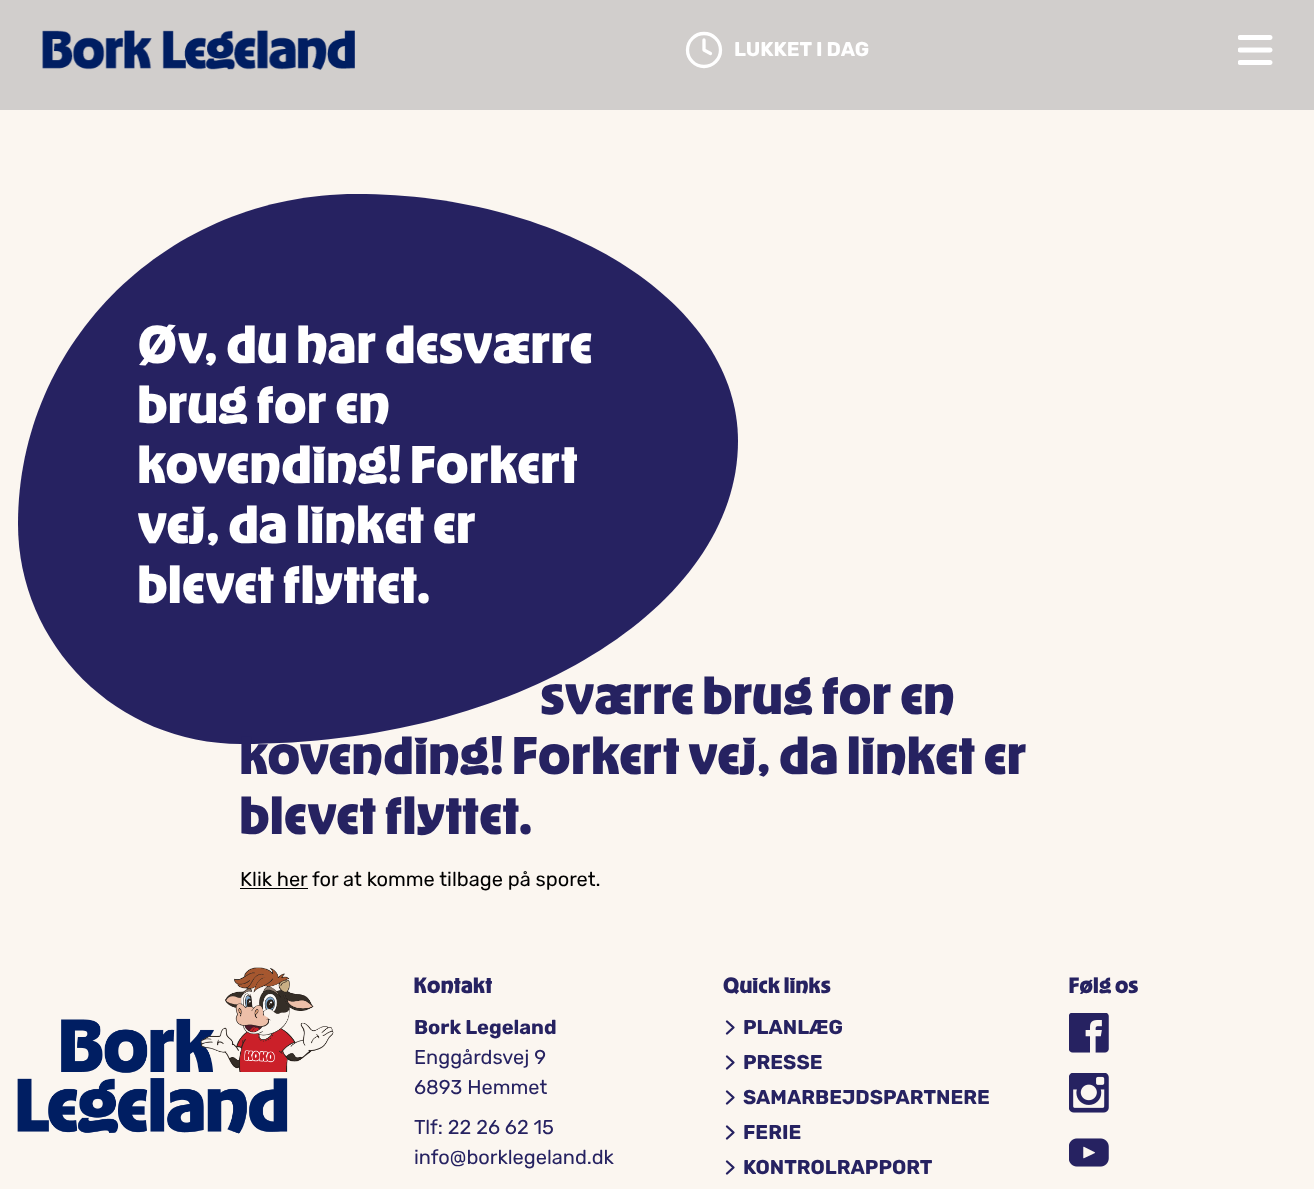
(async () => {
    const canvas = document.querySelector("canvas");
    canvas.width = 1314;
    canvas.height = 1189;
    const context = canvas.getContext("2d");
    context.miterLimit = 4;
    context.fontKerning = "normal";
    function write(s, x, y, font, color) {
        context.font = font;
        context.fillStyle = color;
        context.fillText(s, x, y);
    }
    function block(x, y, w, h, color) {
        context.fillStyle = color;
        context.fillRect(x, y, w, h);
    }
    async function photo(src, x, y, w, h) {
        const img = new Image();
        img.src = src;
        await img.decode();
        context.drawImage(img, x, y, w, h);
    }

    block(0, 0, 1314, 1189, "rgb(251, 246, 240)");
    block(0, 0, 1314, 110, "rgb(209, 206, 204)");
    await photo("media/1.png", 42, 30, 313, 40);
    context.beginPath();
    context.arc(704, 50, 16.5, 0, Math.PI * 2);
    context.strokeStyle = "rgb(255, 255, 255)";
    context.lineWidth = 3.3;
    context.stroke();
    context.beginPath();
    context.moveTo(704, 40);
    context.lineTo(704, 50);
    context.lineTo(710.5, 53.5);
    context.lineCap = "round";
    context.lineJoin = "round";
    context.stroke();
    write("LUKKET I DAG", 734, 56, "bold 20px Rubik", "rgb(255, 255, 255)");
    await photo("media/2.png", 1238, 35, 35, 30);
    context.fillStyle = "rgb(38, 34, 97)";
    context.beginPath();
    context.moveTo(356, 194);
    context.bezierCurveTo(567, 194, 738, 305, 738, 441);
    context.bezierCurveTo(738, 608, 515, 744, 241, 744);
    context.bezierCurveTo(117, 744, 18, 645, 18, 524);
    context.bezierCurveTo(18, 341, 169, 194, 356, 194);
    context.closePath();
    context.fill();
    context.letterSpacing = "1.5px";
    write("Øv, du har desværre", 138, 363, "60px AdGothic", "rgb(255, 255, 255)");
    write("brug for en", 138, 423, "60px AdGothic", "rgb(255, 255, 255)");
    write("kovending! Forkert", 138, 483, "60px AdGothic", "rgb(255, 255, 255)");
    write("vej, da linket er", 138, 543, "60px AdGothic", "rgb(255, 255, 255)");
    write("blevet flyttet.", 138, 603, "60px AdGothic", "rgb(255, 255, 255)");
    write("sværre brug for en", 541, 714, "60px AdGothic", "rgb(38, 34, 97)");
    write("kovending! Forkert vej, da linket er", 240, 774, "60px AdGothic", "rgb(38, 34, 97)");
    write("blevet flyttet.", 240, 834, "60px AdGothic", "rgb(38, 34, 97)");
    context.letterSpacing = "0px";
    write("Klik her", 240, 886, "20px Rubik", "rgb(0, 0, 0)");
    block(240, 888, 68, 1, "rgb(0, 0, 0)");
    write("for at komme tilbage på sporet.", 312, 886, "20px Rubik", "rgb(0, 0, 0)");
    await photo("media/3.png", 17, 967, 317, 167);
    context.letterSpacing = "0.6px";
    write("Kontakt", 414, 993, "25px AdGothic", "rgb(38, 34, 97)");
    context.letterSpacing = "0px";
    write("Bork Legeland", 414, 1034, "bold 20px Rubik", "rgb(38, 34, 97)");
    write("Enggårdsvej 9", 414, 1064, "20px Rubik", "rgb(38, 34, 97)");
    write("6893 Hemmet", 414, 1094, "20px Rubik", "rgb(38, 34, 97)");
    write("Tlf: 22 26 62 15", 414, 1134, "20px Rubik", "rgb(38, 34, 97)");
    write("info@borklegeland.dk", 414, 1164, "20px Rubik", "rgb(38, 34, 97)");
    context.letterSpacing = "0.6px";
    write("Quick links", 723, 993, "25px AdGothic", "rgb(38, 34, 97)");
    context.beginPath();
    context.moveTo(727, 1033.5);
    context.lineTo(733.5, 1027.5);
    context.lineTo(727, 1021.5);
    context.moveTo(727, 1068.5);
    context.lineTo(733.5, 1062.5);
    context.lineTo(727, 1056.5);
    context.strokeStyle = "rgb(38, 34, 97)";
    context.lineWidth = 2.3;
    context.stroke();
    context.letterSpacing = "0px";
    write("PLANLÆG", 743, 1034, "bold 20px Rubik", "rgb(38, 34, 97)");
    write("PRESSE", 743, 1069, "bold 20px Rubik", "rgb(38, 34, 97)");
    context.beginPath();
    context.moveTo(727, 1103.5);
    context.lineTo(733.5, 1097.5);
    context.lineTo(727, 1091.5);
    context.moveTo(727, 1138.5);
    context.lineTo(733.5, 1132.5);
    context.lineTo(727, 1126.5);
    context.stroke();
    write("SAMARBEJDSPARTNERE", 743, 1104, "bold 20px Rubik", "rgb(38, 34, 97)");
    write("FERIE", 743, 1139, "bold 20px Rubik", "rgb(38, 34, 97)");
    context.beginPath();
    context.moveTo(727, 1173.5);
    context.lineTo(733.5, 1167.5);
    context.lineTo(727, 1161.5);
    context.stroke();
    write("KONTROLRAPPORT", 743, 1174, "bold 20px Rubik", "rgb(38, 34, 97)");
    context.letterSpacing = "0.6px";
    write("Følg os", 1069, 993, "25px AdGothic", "rgb(38, 34, 97)");
    await photo("media/4.png", 1069, 1013, 40, 40);
    await photo("media/5.png", 1069, 1073, 40, 40);
    await photo("media/6.png", 1069, 1138, 40, 29);
})();
